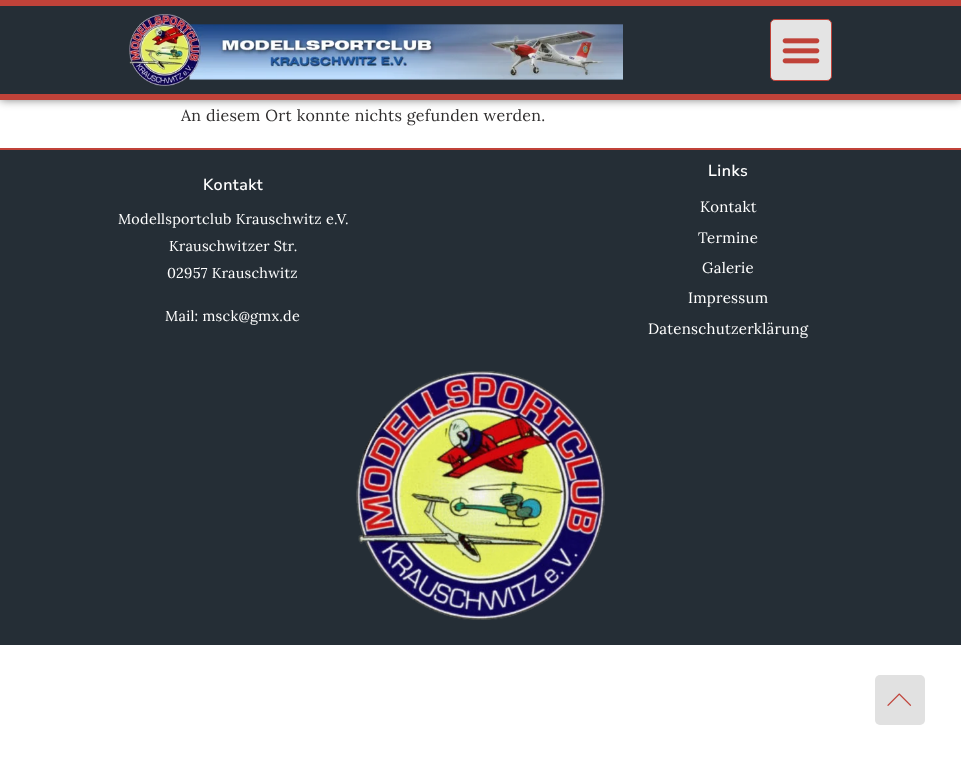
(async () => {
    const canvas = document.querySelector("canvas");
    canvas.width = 961;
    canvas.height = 764;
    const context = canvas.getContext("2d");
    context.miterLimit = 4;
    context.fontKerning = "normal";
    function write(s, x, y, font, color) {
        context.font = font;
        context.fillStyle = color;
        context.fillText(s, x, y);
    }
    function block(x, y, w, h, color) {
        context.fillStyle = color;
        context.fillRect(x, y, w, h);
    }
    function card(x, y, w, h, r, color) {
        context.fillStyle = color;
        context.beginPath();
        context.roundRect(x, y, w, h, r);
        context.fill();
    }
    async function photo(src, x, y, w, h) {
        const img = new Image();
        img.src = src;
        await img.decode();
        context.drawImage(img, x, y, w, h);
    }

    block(0, 0, 961, 764, "rgb(255, 255, 255)");
    context.fillStyle = "rgba(0, 0, 0, 0.5)";
    context.filter = "blur(5px)";
    context.beginPath();
    context.rect(0, 0, 961, 100);
    context.fill();
    context.filter = "none";
    block(0, 6, 961, 88, "rgb(37, 46, 54)");
    block(0, 0, 961, 6, "rgb(192, 66, 57)");
    block(0, 94, 961, 6, "rgb(192, 66, 57)");
    await photo("media/1.png", 129, 14, 494, 72);
    context.fillStyle = "rgb(228, 228, 228)";
    context.beginPath();
    context.roundRect(770.5, 19.5, 61, 61, 4.5);
    context.fill();
    context.strokeStyle = "rgb(192, 66, 57)";
    context.stroke();
    await photo("media/2.png", 782, 38, 38, 26);
    context.letterSpacing = "0.25px";
    context.wordSpacing = "0.25px";
    write("An diesem Ort konnte nichts gefunden werden.", 181, 121, "16px Lora", "rgb(47, 45, 45)");
    block(0, 150, 961, 495, "rgb(37, 46, 54)");
    block(0, 148, 961, 2, "rgb(192, 66, 57)");
    context.letterSpacing = "0.5px";
    context.wordSpacing = "0px";
    write("Kontakt", 203, 190, "600 16px Nunito Sans", "rgb(255, 255, 255)");
    context.letterSpacing = "0.25px";
    write("Modellsportclub Krauschwitz e.V.", 118, 224, "14.4px Lora", "rgb(255, 255, 255)");
    write("Krauschwitzer Str.", 169, 251, "14.4px Lora", "rgb(255, 255, 255)");
    write("02957 Krauschwitz", 167, 278, "14.4px Lora", "rgb(255, 255, 255)");
    write("Mail: msck@gmx.de", 165, 321, "14.4px Lora", "rgb(255, 255, 255)");
    context.letterSpacing = "0.5px";
    write("Links", 708, 176, "600 16px Nunito Sans", "rgb(255, 255, 255)");
    context.letterSpacing = "0.25px";
    write("Kontakt", 700, 212, "15px Lora", "rgb(255, 255, 255)");
    write("Termine", 698, 243, "15px Lora", "rgb(255, 255, 255)");
    write("Galerie", 702, 273, "15px Lora", "rgb(255, 255, 255)");
    write("Impressum", 688, 303, "15px Lora", "rgb(255, 255, 255)");
    write("Datenschutzerklärung", 648, 334, "15px Lora", "rgb(255, 255, 255)");
    await photo("media/3.png", 356, 371, 249, 249);
    card(875, 675, 50, 50, 5, "rgb(225, 225, 225)");
    await photo("media/4.png", 887, 693, 25, 13);
})();
